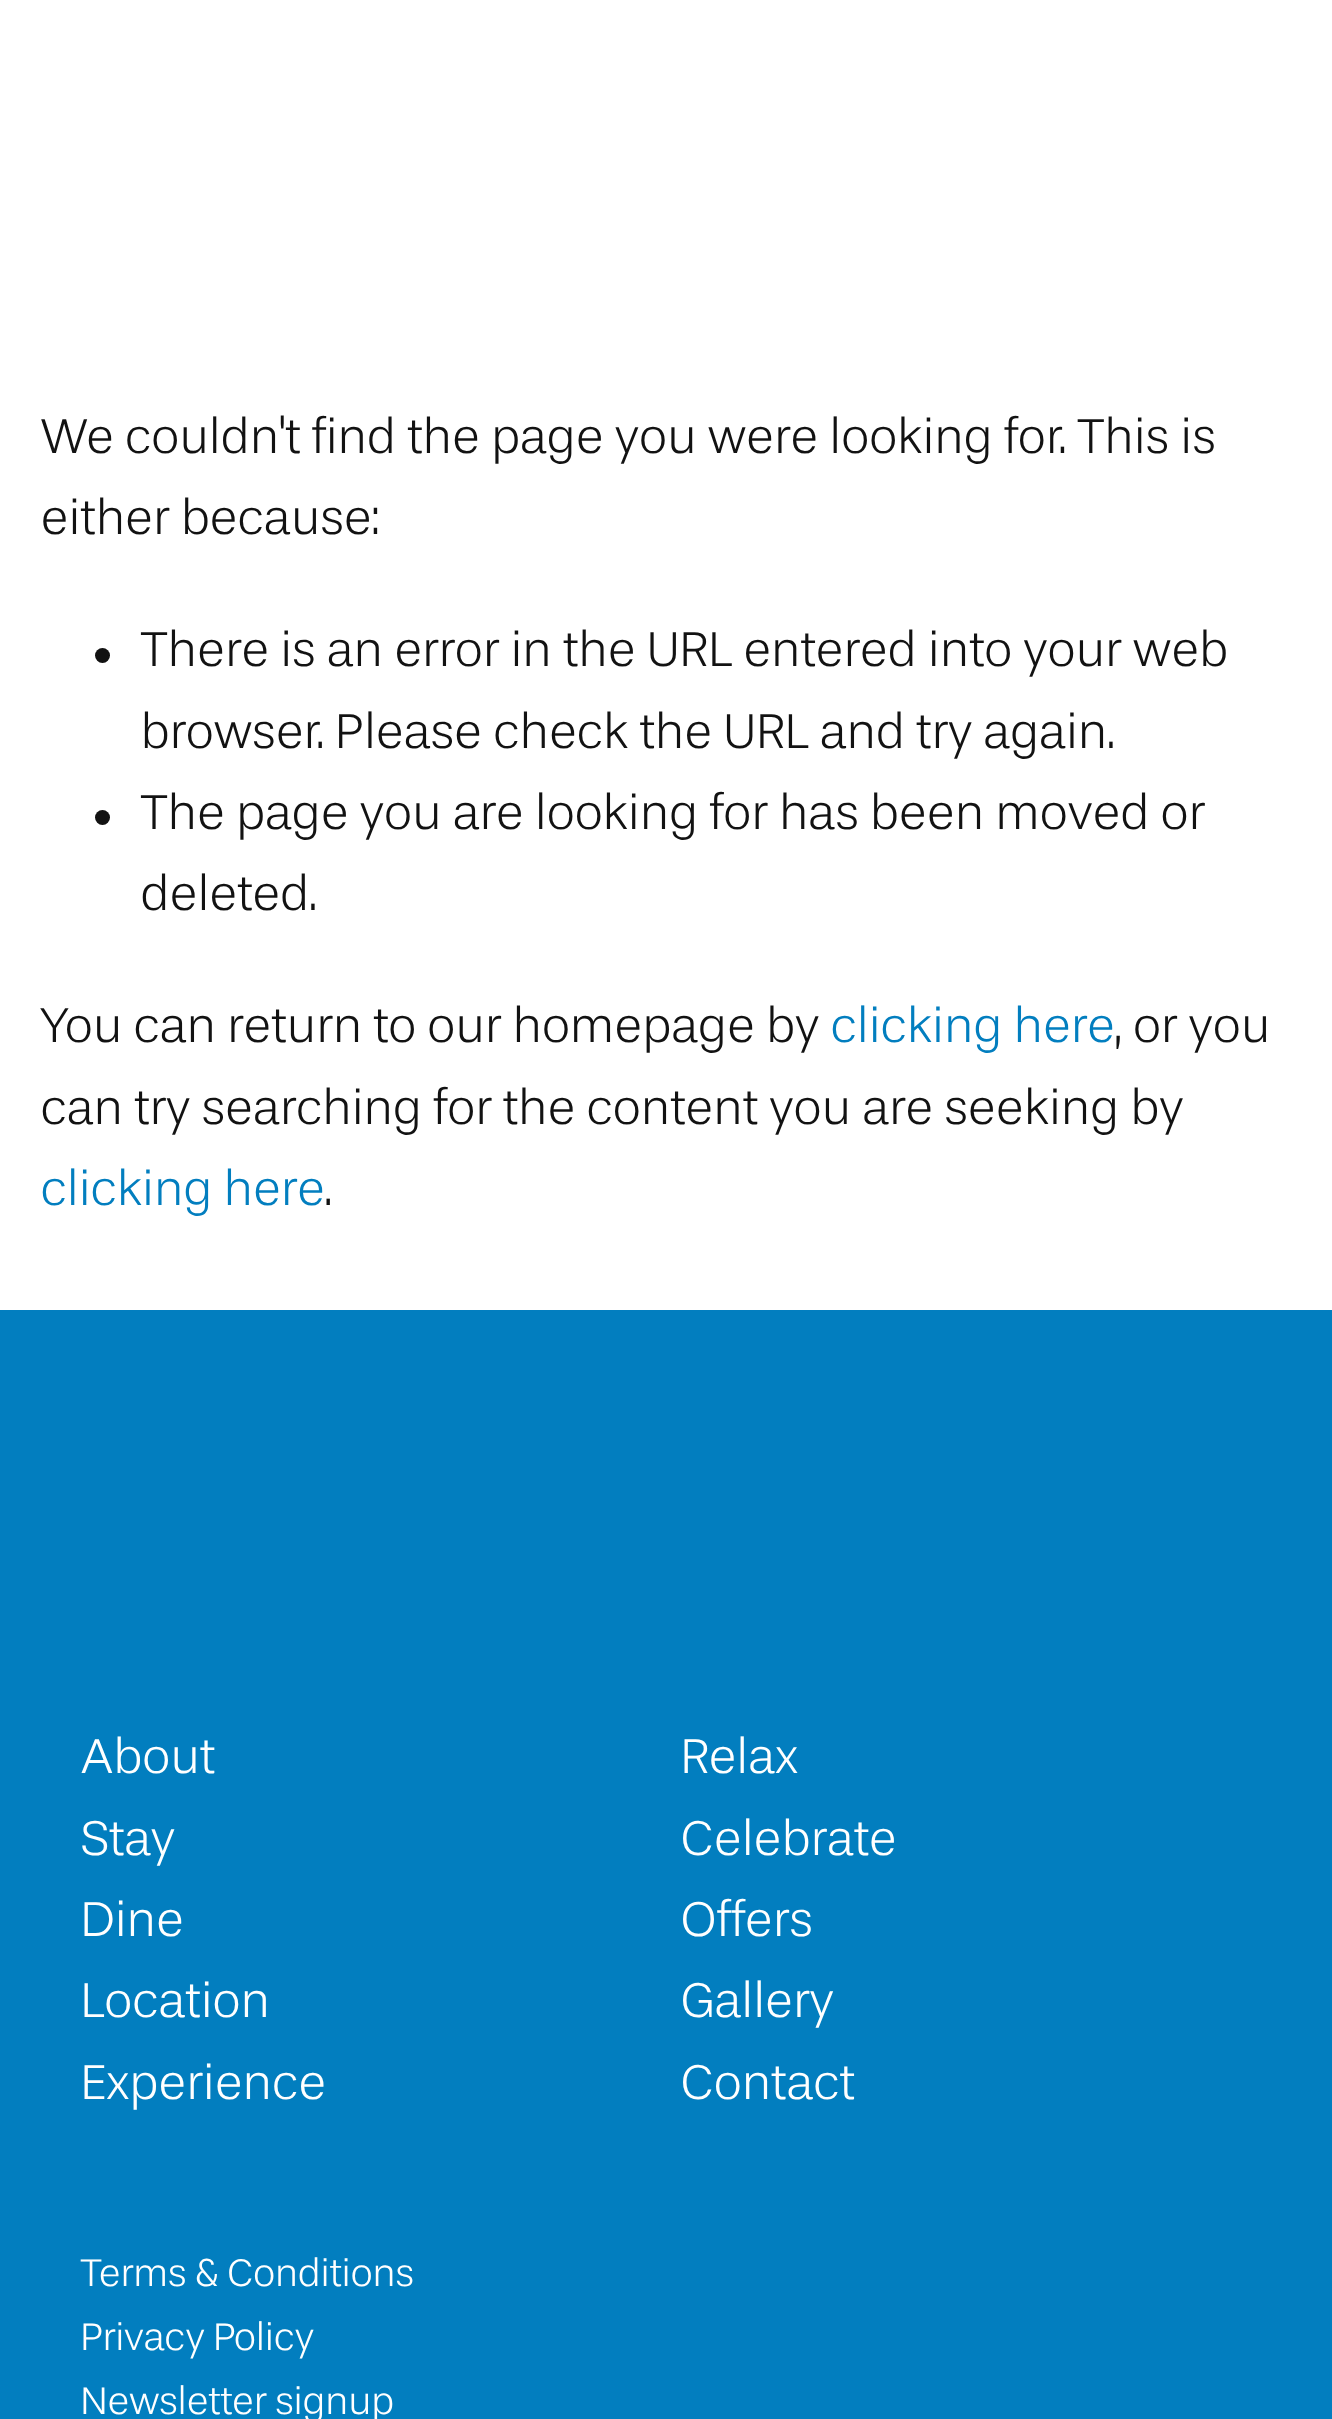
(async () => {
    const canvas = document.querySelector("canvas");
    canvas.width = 1332;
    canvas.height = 2419;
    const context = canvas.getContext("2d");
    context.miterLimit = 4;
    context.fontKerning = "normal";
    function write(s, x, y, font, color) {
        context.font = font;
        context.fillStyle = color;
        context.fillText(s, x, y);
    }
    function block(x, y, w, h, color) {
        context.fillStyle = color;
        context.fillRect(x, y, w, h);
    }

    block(0, 0, 1332, 2419, "rgb(255, 255, 255)");
    context.letterSpacing = "-1.02px";
    write("We couldn't find the page you were looking for. This is", 40, 453, "300 50.8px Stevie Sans", "rgb(18, 18, 18)");
    write("either because:", 40, 534, "300 50.8px Stevie Sans", "rgb(18, 18, 18)");
    context.beginPath();
    context.arc(102.5, 655.5, 7.5, 0, Math.PI * 2);
    context.fill();
    write("There is an error in the URL entered into your web", 140, 666, "300 50.8px Stevie Sans", "rgb(18, 18, 18)");
    write("browser. Please check the URL and try again.", 140, 748, "300 50.8px Stevie Sans", "rgb(18, 18, 18)");
    context.beginPath();
    context.arc(102.5, 817.5, 7.5, 0, Math.PI * 2);
    context.fill();
    write("The page you are looking for has been moved or", 140, 829, "300 50.8px Stevie Sans", "rgb(18, 18, 18)");
    write("deleted.", 140, 910, "300 50.8px Stevie Sans", "rgb(18, 18, 18)");
    write("You can return to our homepage by", 40, 1042, "300 50.8px Stevie Sans", "rgb(18, 18, 18)");
    write("clicking here", 830, 1042, "300 50.8px Stevie Sans", "rgb(2, 126, 191)");
    write(", or you", 1114, 1042, "300 50.8px Stevie Sans", "rgb(18, 18, 18)");
    write("can try searching for the content you are seeking by", 40, 1124, "300 50.8px Stevie Sans", "rgb(18, 18, 18)");
    write("clicking here", 40, 1205, "300 50.8px Stevie Sans", "rgb(2, 126, 191)");
    write(".", 324, 1205, "300 50.8px Stevie Sans", "rgb(18, 18, 18)");
    block(0, 1310, 1332, 1109, "rgb(2, 126, 191)");
    write("About", 80, 1773, "300 50.8px Stevie Sans", "rgb(255, 255, 255)");
    write("Stay", 80, 1855, "300 50.8px Stevie Sans", "rgb(255, 255, 255)");
    write("Dine", 80, 1936, "300 50.8px Stevie Sans", "rgb(255, 255, 255)");
    write("Location", 80, 2017, "300 50.8px Stevie Sans", "rgb(255, 255, 255)");
    write("Experience", 80, 2099, "300 50.8px Stevie Sans", "rgb(255, 255, 255)");
    write("Relax", 680, 1773, "300 50.8px Stevie Sans", "rgb(255, 255, 255)");
    write("Celebrate", 680, 1855, "300 50.8px Stevie Sans", "rgb(255, 255, 255)");
    write("Offers", 680, 1936, "300 50.8px Stevie Sans", "rgb(255, 255, 255)");
    write("Gallery", 680, 2017, "300 50.8px Stevie Sans", "rgb(255, 255, 255)");
    write("Contact", 680, 2099, "300 50.8px Stevie Sans", "rgb(255, 255, 255)");
    write("Terms & Conditions", 80, 2286, "300 40px Stevie Sans", "rgb(255, 255, 255)");
    write("Privacy Policy", 80, 2350, "300 40px Stevie Sans", "rgb(255, 255, 255)");
    write("Newsletter signup", 80, 2414, "300 40px Stevie Sans", "rgb(255, 255, 255)");
})();
